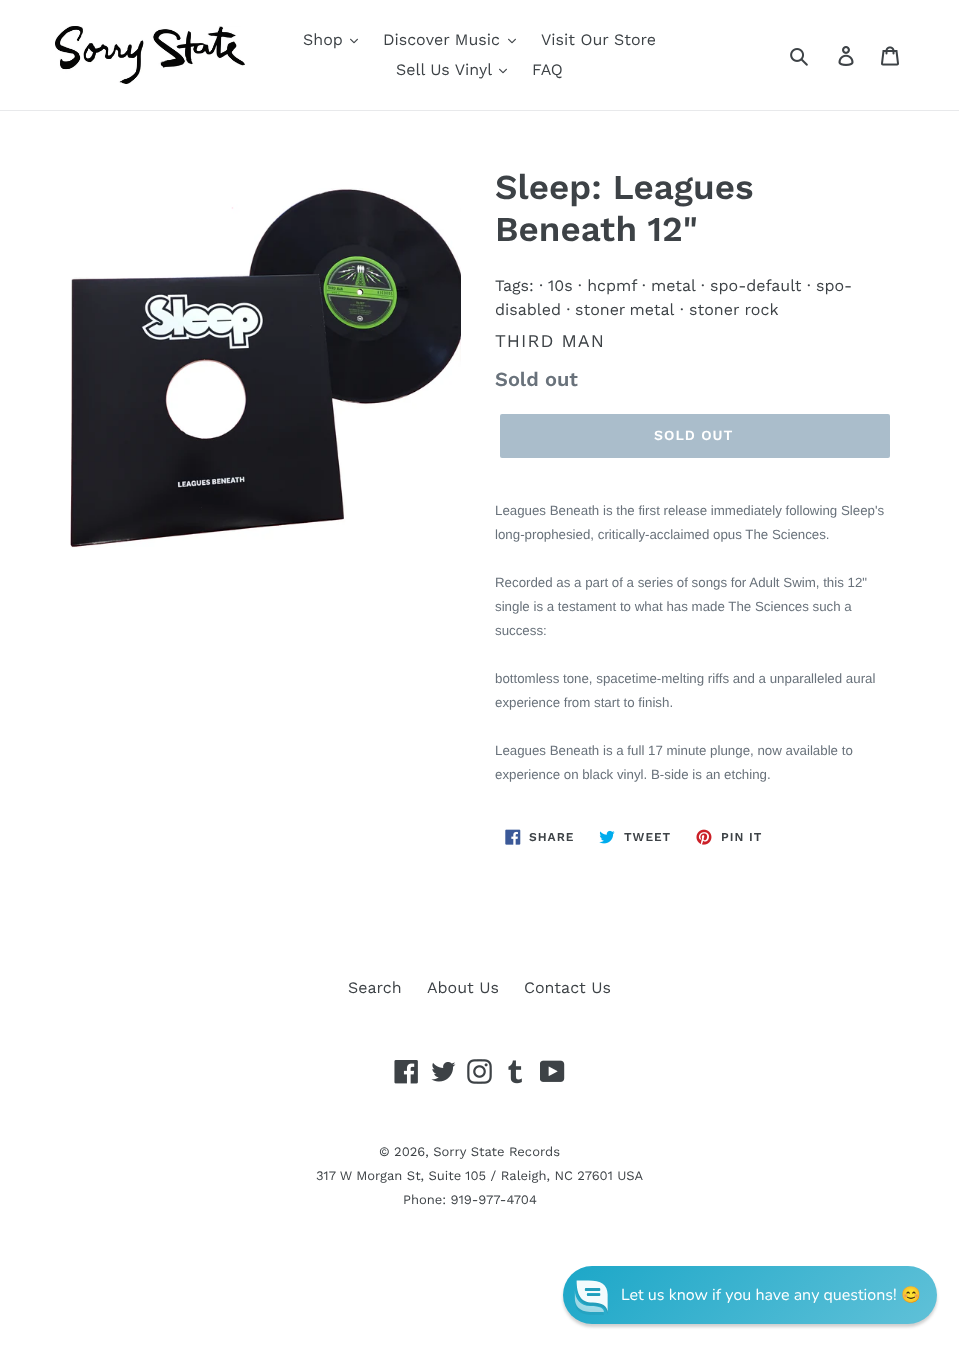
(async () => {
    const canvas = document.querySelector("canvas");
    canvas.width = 959;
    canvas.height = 1346;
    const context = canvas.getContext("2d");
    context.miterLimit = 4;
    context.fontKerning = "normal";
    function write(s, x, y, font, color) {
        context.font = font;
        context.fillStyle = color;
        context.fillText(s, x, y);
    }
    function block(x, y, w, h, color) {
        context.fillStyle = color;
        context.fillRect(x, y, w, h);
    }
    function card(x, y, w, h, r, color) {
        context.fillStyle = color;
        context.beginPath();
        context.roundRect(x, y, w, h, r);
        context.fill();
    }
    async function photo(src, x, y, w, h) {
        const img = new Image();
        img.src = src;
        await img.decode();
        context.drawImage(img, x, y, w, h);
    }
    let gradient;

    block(0, 0, 959, 1346, "rgb(255, 255, 255)");
    block(0, 110, 959, 1, "rgb(232, 233, 235)");
    await photo("media/1.png", 55, 26, 190, 58);
    write("Shop", 303, 45, "16px Work Sans", "rgb(61, 66, 70)");
    await photo("media/2.png", 350, 38, 8, 6);
    write("Discover Music", 383, 45, "16px Work Sans", "rgb(61, 66, 70)");
    await photo("media/2.png", 508, 38, 8, 6);
    write("Visit Our Store", 541, 45, "16px Work Sans", "rgb(61, 66, 70)");
    write("Sell Us Vinyl", 396, 75, "16px Work Sans", "rgb(61, 66, 70)");
    await photo("media/2.png", 499, 68, 8, 6);
    write("FAQ", 532, 75, "16px Work Sans", "rgb(61, 66, 70)");
    await photo("media/3.png", 790, 48, 18, 18);
    await photo("media/4.png", 838, 46, 16, 20);
    await photo("media/5.png", 881, 46, 18, 20);
    await photo("media/6.png", 70, 188, 391, 360);
    write("Sleep: Leagues", 495, 199, "600 35px Work Sans", "rgb(61, 66, 70)");
    write("Beneath 12\"", 495, 241, "600 35px Work Sans", "rgb(61, 66, 70)");
    write("Tags: ·", 495, 291, "16px Work Sans", "rgb(61, 66, 70)");
    write("10s · hcpmf", 548, 291, "16px Work Sans", "rgb(61, 66, 70)");
    write("· metal", 642, 291, "16px Work Sans", "rgb(61, 66, 70)");
    write("· spo-default · spo-", 701, 291, "16px Work Sans", "rgb(61, 66, 70)");
    write("disabled ·", 495, 315, "16px Work Sans", "rgb(61, 66, 70)");
    context.wordSpacing = "-1px";
    write("stoner metal", 575, 315, "16px Work Sans", "rgb(61, 66, 70)");
    context.wordSpacing = "0px";
    write("· stoner rock", 680, 315, "16px Work Sans", "rgb(61, 66, 70)");
    context.letterSpacing = "1px";
    write("THIRD MAN", 495, 347, "18px Work Sans", "rgb(61, 66, 70)");
    context.letterSpacing = "0px";
    write("Sold out", 495, 386, "600 20px Work Sans", "rgb(105, 114, 123)");
    card(500, 414, 390, 44, 2, "rgb(170, 189, 203)");
    context.letterSpacing = "1px";
    write("SOLD OUT", 654, 440, "600 14px Work Sans", "rgb(255, 255, 255)");
    context.letterSpacing = "0px";
    write("Leagues Beneath is the first release immediately following Sleep's", 495, 515, "13.3px Liberation Sans", "rgb(105, 114, 123)");
    write("long-prophesied, critically-acclaimed opus The Sciences.", 495, 539, "13.3px Liberation Sans", "rgb(105, 114, 123)");
    write("Recorded as a part of a series of songs for Adult Swim, this 12\"", 495, 587, "13.3px Liberation Sans", "rgb(105, 114, 123)");
    write("single is a testament to what has made The Sciences such a", 495, 611, "13.3px Liberation Sans", "rgb(105, 114, 123)");
    write("success:", 495, 635, "13.3px Liberation Sans", "rgb(105, 114, 123)");
    write("bottomless tone, spacetime-melting riffs and a unparalleled aural", 495, 683, "13.3px Liberation Sans", "rgb(105, 114, 123)");
    write("experience from start to finish.", 495, 707, "13.3px Liberation Sans", "rgb(105, 114, 123)");
    write("Leagues Beneath is a full 17 minute plunge, now available to", 495, 755, "13.3px Liberation Sans", "rgb(105, 114, 123)");
    write("experience on black vinyl. B-side is an etching.", 495, 779, "13.3px Liberation Sans", "rgb(105, 114, 123)");
    await photo("media/7.png", 505, 829, 16, 16);
    context.letterSpacing = "1px";
    write("SHARE", 529, 841, "600 12px Work Sans", "rgb(61, 66, 70)");
    await photo("media/8.png", 599, 830, 16, 14);
    write("TWEET", 624, 841, "600 12px Work Sans", "rgb(61, 66, 70)");
    await photo("media/9.png", 696, 829, 16, 16);
    write("PIN IT", 721, 841, "600 12px Work Sans", "rgb(61, 66, 70)");
    context.letterSpacing = "0px";
    write("Search", 348, 993, "16px Work Sans", "rgb(61, 66, 70)");
    write("About Us", 427, 993, "16px Work Sans", "rgb(61, 66, 70)");
    write("Contact Us", 524, 993, "16px Work Sans", "rgb(61, 66, 70)");
    await photo("media/10.png", 394, 1060, 24, 24);
    await photo("media/11.png", 431, 1062, 25, 20);
    await photo("media/12.png", 467, 1059, 25, 25);
    await photo("media/13.png", 508, 1060, 14, 24);
    await photo("media/14.png", 540, 1060, 25, 22);
    write("© 2026, Sorry State Records", 379, 1156, "13px Work Sans", "rgb(61, 66, 70)");
    write("317 W Morgan St, Suite 105 / Raleigh, NC 27601 USA", 316, 1180, "13px Work Sans", "rgb(61, 66, 70)");
    write("Phone: 919-977-4704", 403, 1204, "13px Work Sans", "rgb(61, 66, 70)");
    context.fillStyle = "rgba(13, 13, 13, 0.2)";
    context.filter = "blur(1.5px)";
    context.beginPath();
    context.roundRect(563, 1269, 374, 58, 29);
    context.fill();
    context.filter = "none";
    gradient = context.createLinearGradient(642, 1187, 858, 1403);
    gradient.addColorStop(0, "rgb(28, 167, 200)");
    gradient.addColorStop(1, "rgb(96, 193, 216)");
    context.fillStyle = gradient;
    context.beginPath();
    context.roundRect(563, 1266, 374, 58, 29);
    context.fill();
    await photo("media/15.png", 574, 1280, 34, 35);
    write("Let us know if you have any questions!", 621, 1300, "16px Nunito", "rgb(255, 255, 255)");
    write("😊", 901, 1300, "16px Noto Color Emoji", "rgb(255, 255, 255)");
})();
